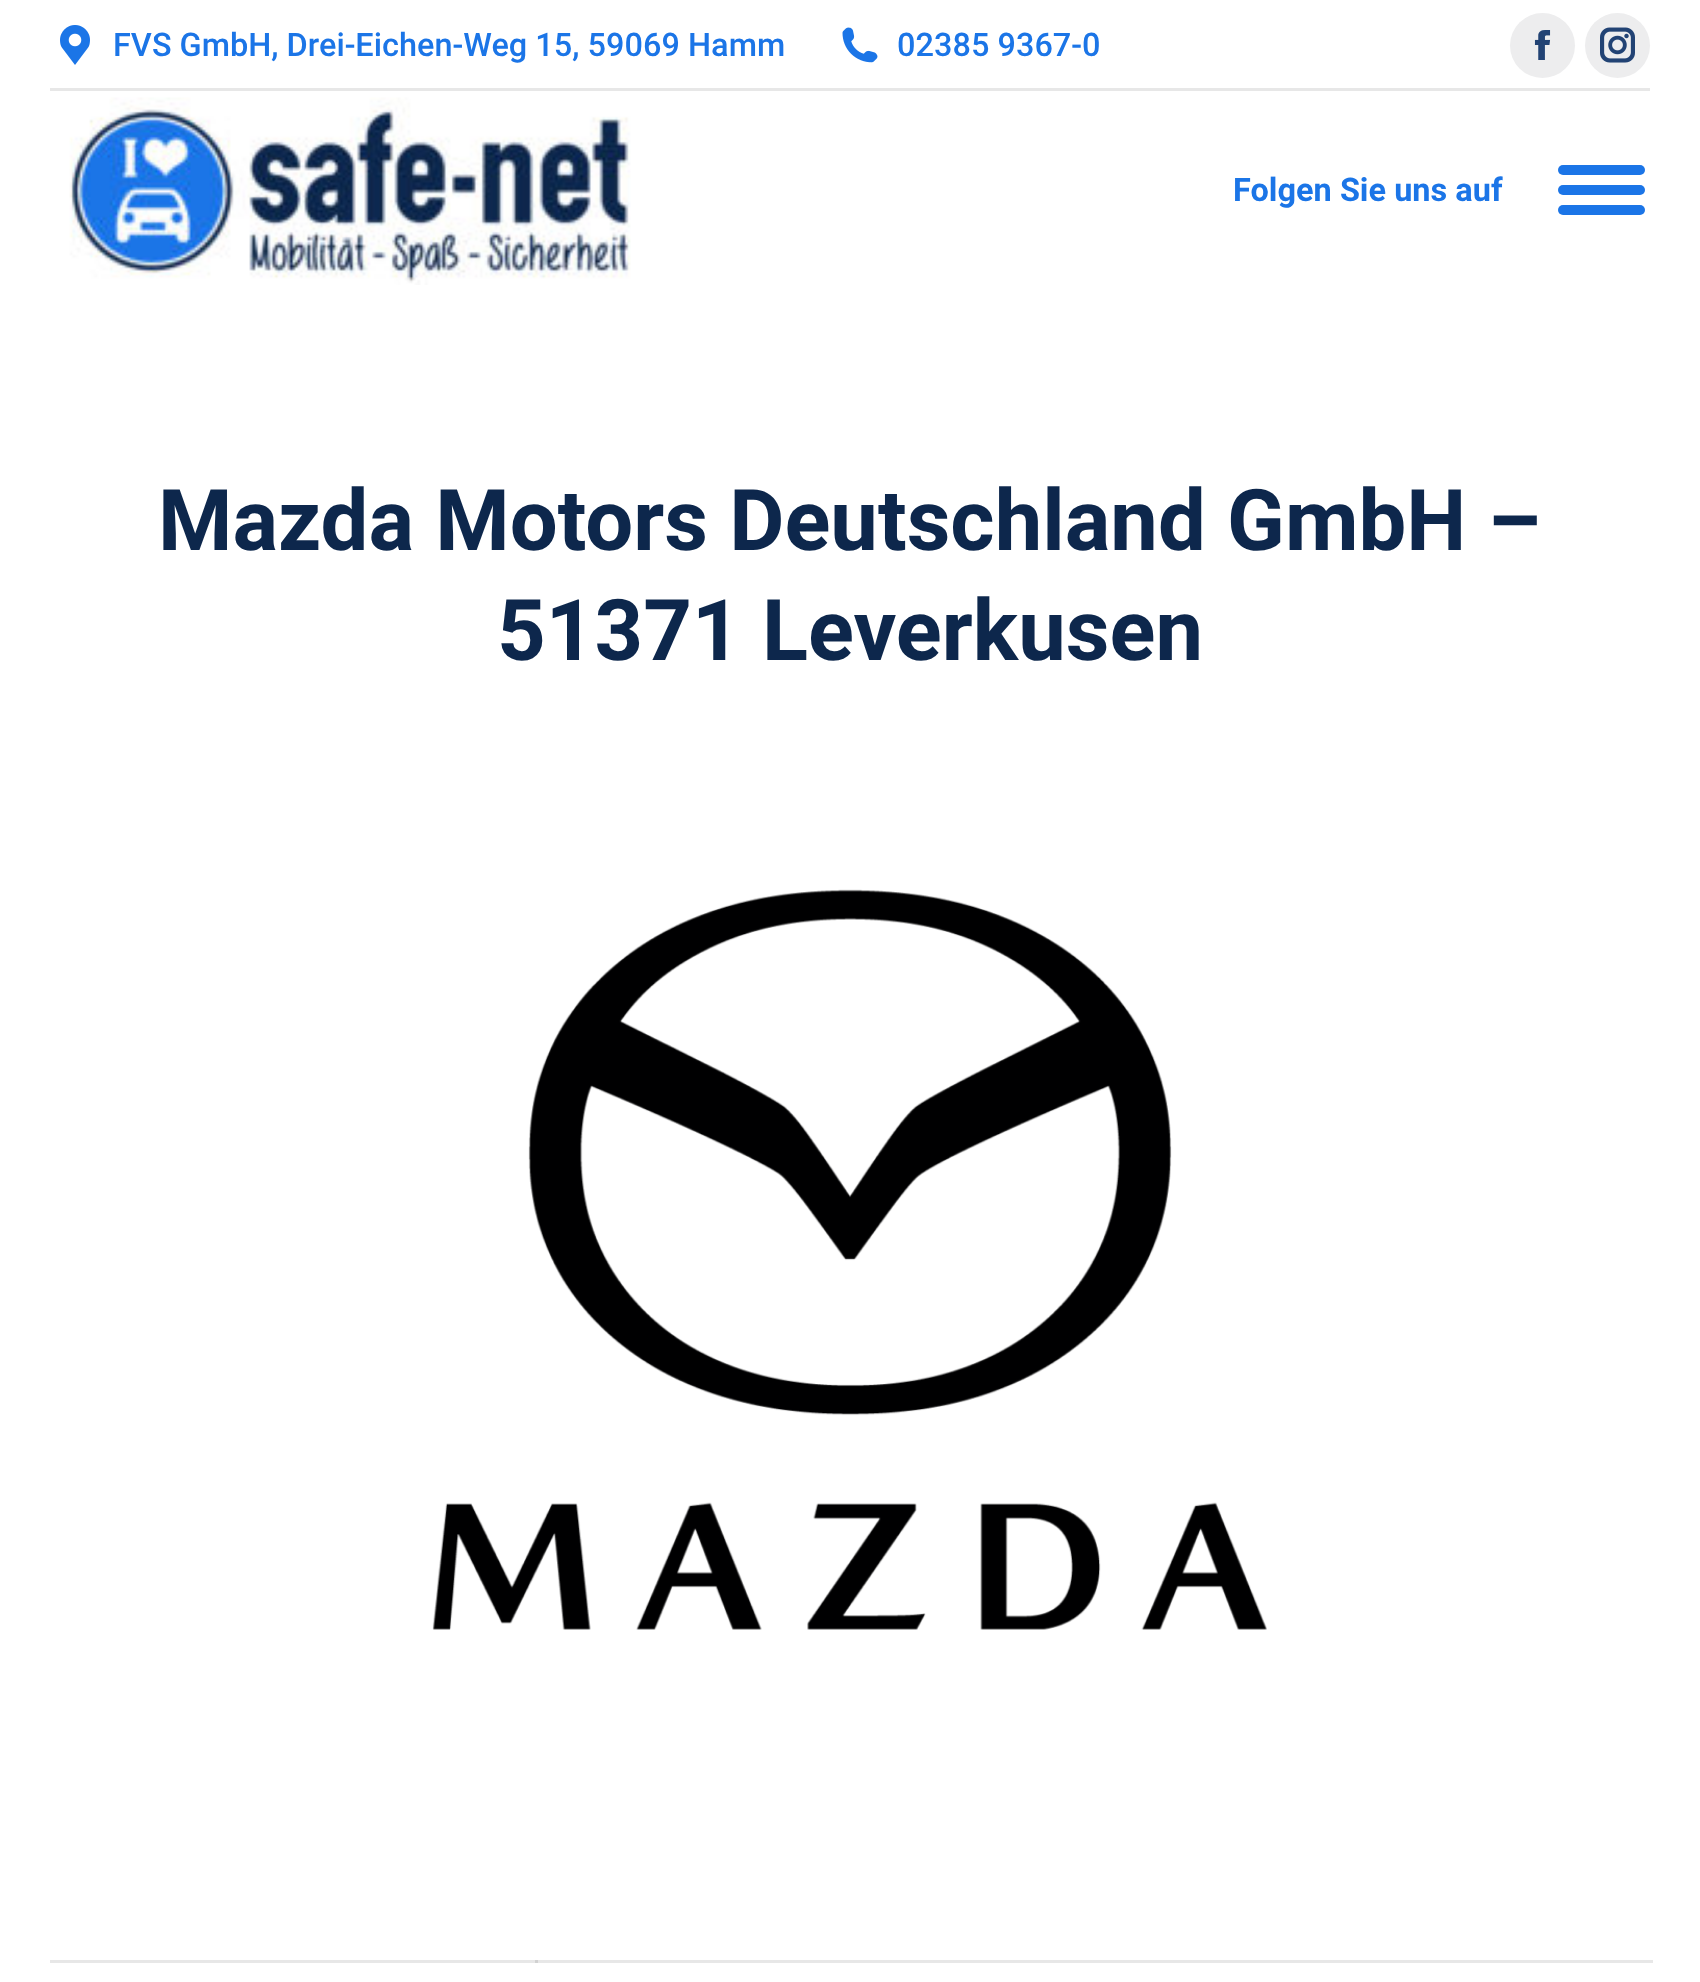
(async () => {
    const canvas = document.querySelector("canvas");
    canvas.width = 1700;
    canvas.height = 1982;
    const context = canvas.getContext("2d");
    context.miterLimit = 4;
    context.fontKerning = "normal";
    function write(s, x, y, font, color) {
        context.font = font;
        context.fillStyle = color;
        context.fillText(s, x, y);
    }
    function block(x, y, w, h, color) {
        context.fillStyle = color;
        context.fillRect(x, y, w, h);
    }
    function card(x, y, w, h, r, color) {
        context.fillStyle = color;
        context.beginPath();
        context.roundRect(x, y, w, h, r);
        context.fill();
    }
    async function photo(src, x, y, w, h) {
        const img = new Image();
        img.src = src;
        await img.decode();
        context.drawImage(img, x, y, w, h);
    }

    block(0, 0, 1700, 1982, "rgb(255, 255, 255)");
    block(50, 1960, 1603, 3, "rgb(231, 231, 231)");
    await photo("media/1.png", 60, 25, 30, 40);
    write("FVS GmbH, Drei-Eichen-Weg 15, 59069 Hamm", 113, 56, "500 32.5px Roboto", "rgb(27, 117, 231)");
    await photo("media/2.png", 842, 27, 36, 36);
    write("02385 9367-0", 897, 56, "500 32.5px Roboto", "rgb(27, 117, 231)");
    context.fillStyle = "rgb(237, 237, 238)";
    context.beginPath();
    context.arc(1542.5, 45.5, 32.5, 0, Math.PI * 2);
    context.fill();
    await photo("media/3.png", 1534, 30, 17, 30);
    context.beginPath();
    context.arc(1617.5, 45.5, 32.5, 0, Math.PI * 2);
    context.fill();
    await photo("media/4.png", 1600, 27, 35, 36);
    block(50, 88, 1600, 3, "rgb(231, 231, 231)");
    await photo("media/5.png", 69, 97, 562, 188);
    write("Folgen Sie uns auf", 1233, 201, "bold 32.5px Roboto", "rgb(27, 117, 231)");
    card(1558, 165, 87, 10, 5, "rgb(27, 117, 231)");
    card(1558, 185, 87, 10, 5, "rgb(27, 117, 231)");
    card(1558, 205, 87, 10, 5, "rgb(27, 117, 231)");
    write("Mazda Motors Deutschland GmbH –", 158, 550, "bold 85px Roboto", "rgb(13, 39, 76)");
    write("51371 Leverkusen", 497, 660, "bold 85px Roboto", "rgb(13, 39, 76)");
    await photo("media/6.png", 432, 889, 835, 741);
    block(535, 1960, 3, 3, "rgb(209, 209, 209)");
})();
